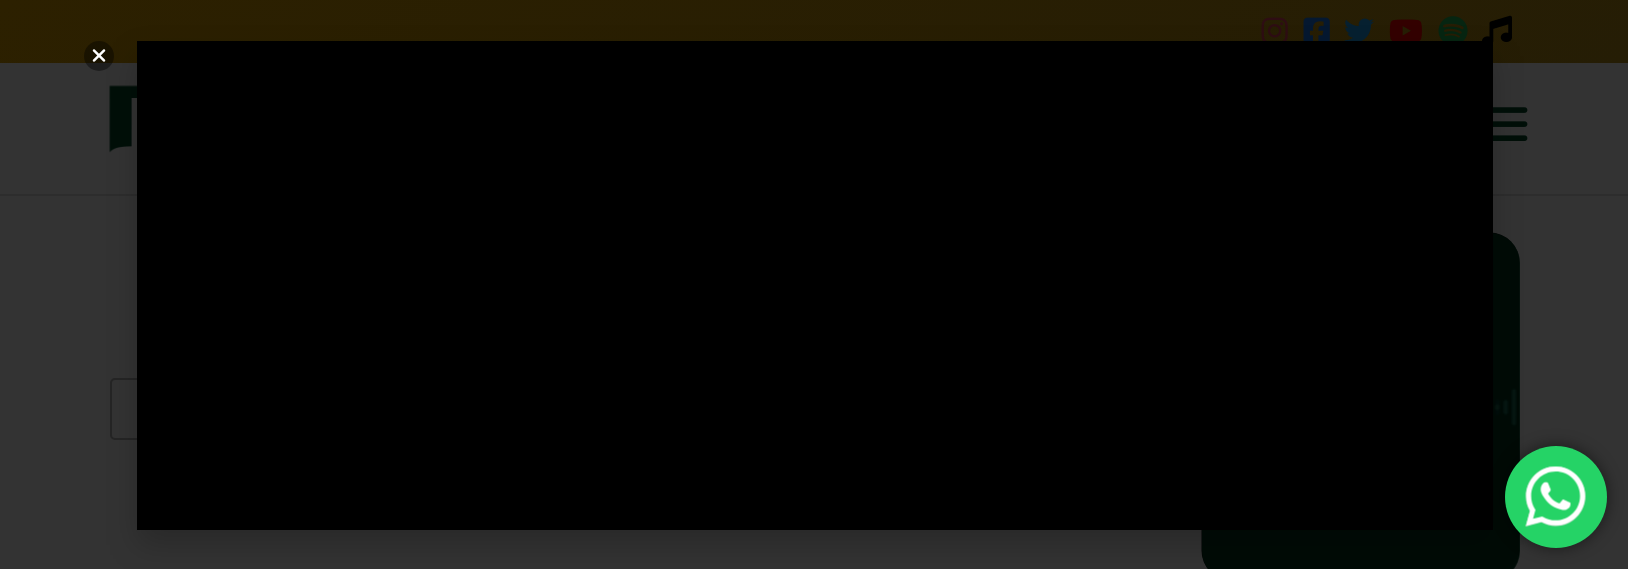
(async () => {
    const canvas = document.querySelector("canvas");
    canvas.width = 1628;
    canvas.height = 569;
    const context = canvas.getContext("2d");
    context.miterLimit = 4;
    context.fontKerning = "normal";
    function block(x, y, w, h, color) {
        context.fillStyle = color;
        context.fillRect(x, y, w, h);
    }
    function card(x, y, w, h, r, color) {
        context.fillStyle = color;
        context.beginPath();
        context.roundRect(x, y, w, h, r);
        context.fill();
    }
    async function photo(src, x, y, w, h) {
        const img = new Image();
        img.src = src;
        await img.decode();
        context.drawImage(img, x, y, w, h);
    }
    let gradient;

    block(0, 0, 1628, 569, "rgb(51, 51, 51)");
    gradient = context.createLinearGradient(1097, 435, 532, -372);
    gradient.addColorStop(0, "rgb(37, 29, 5)");
    gradient.addColorStop(1, "rgb(44, 32, 0)");
    context.fillStyle = gradient;
    context.fillRect(0, 0, 1628, 63);
    await photo("media/1.png", 1261, 17, 27, 24);
    await photo("media/2.png", 1303, 17, 27, 24);
    await photo("media/3.png", 1344, 18, 30, 23);
    await photo("media/4.png", 1389, 19, 33, 22);
    await photo("media/5.png", 1438, 16, 30, 25);
    await photo("media/6.png", 1482, 15, 30, 28);
    block(0, 194, 1628, 2, "rgb(45, 45, 45)");
    await photo("media/7.png", 109, 85, 28, 68);
    await photo("media/8.png", 1493, 107, 35, 34);
    context.beginPath();
    context.roundRect(111, 379, 1045, 60, 4);
    context.strokeStyle = "rgb(37, 37, 37)";
    context.lineWidth = 2;
    context.stroke();
    await photo("media/9.png", 1201, 232, 319, 337);
    card(1202, 233, 318, 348, 30, "rgba(0, 15, 8, 0.75)");
    context.fillStyle = "rgba(0, 0, 0, 0.2)";
    context.filter = "blur(15px)";
    context.beginPath();
    context.rect(137, 56, 1356, 489);
    context.fill();
    context.filter = "none";
    block(137, 41, 1356, 489, "rgb(0, 0, 0)");
    context.fillStyle = "rgba(0, 0, 0, 0.4)";
    context.beginPath();
    context.arc(99, 56, 15, 0, Math.PI * 2);
    context.fill();
    await photo("media/10.png", 92, 49, 14, 13);
    context.fillStyle = "rgba(0, 0, 0, 0.5)";
    context.filter = "blur(8px)";
    context.beginPath();
    context.roundRect(1505, 446, 102, 102, 51);
    context.fill();
    context.filter = "none";
    context.fillStyle = "rgb(37, 211, 102)";
    context.beginPath();
    context.arc(1556, 497, 51, 0, Math.PI * 2);
    context.fill();
    await photo("media/11.png", 1525, 466, 61, 61);
})();
